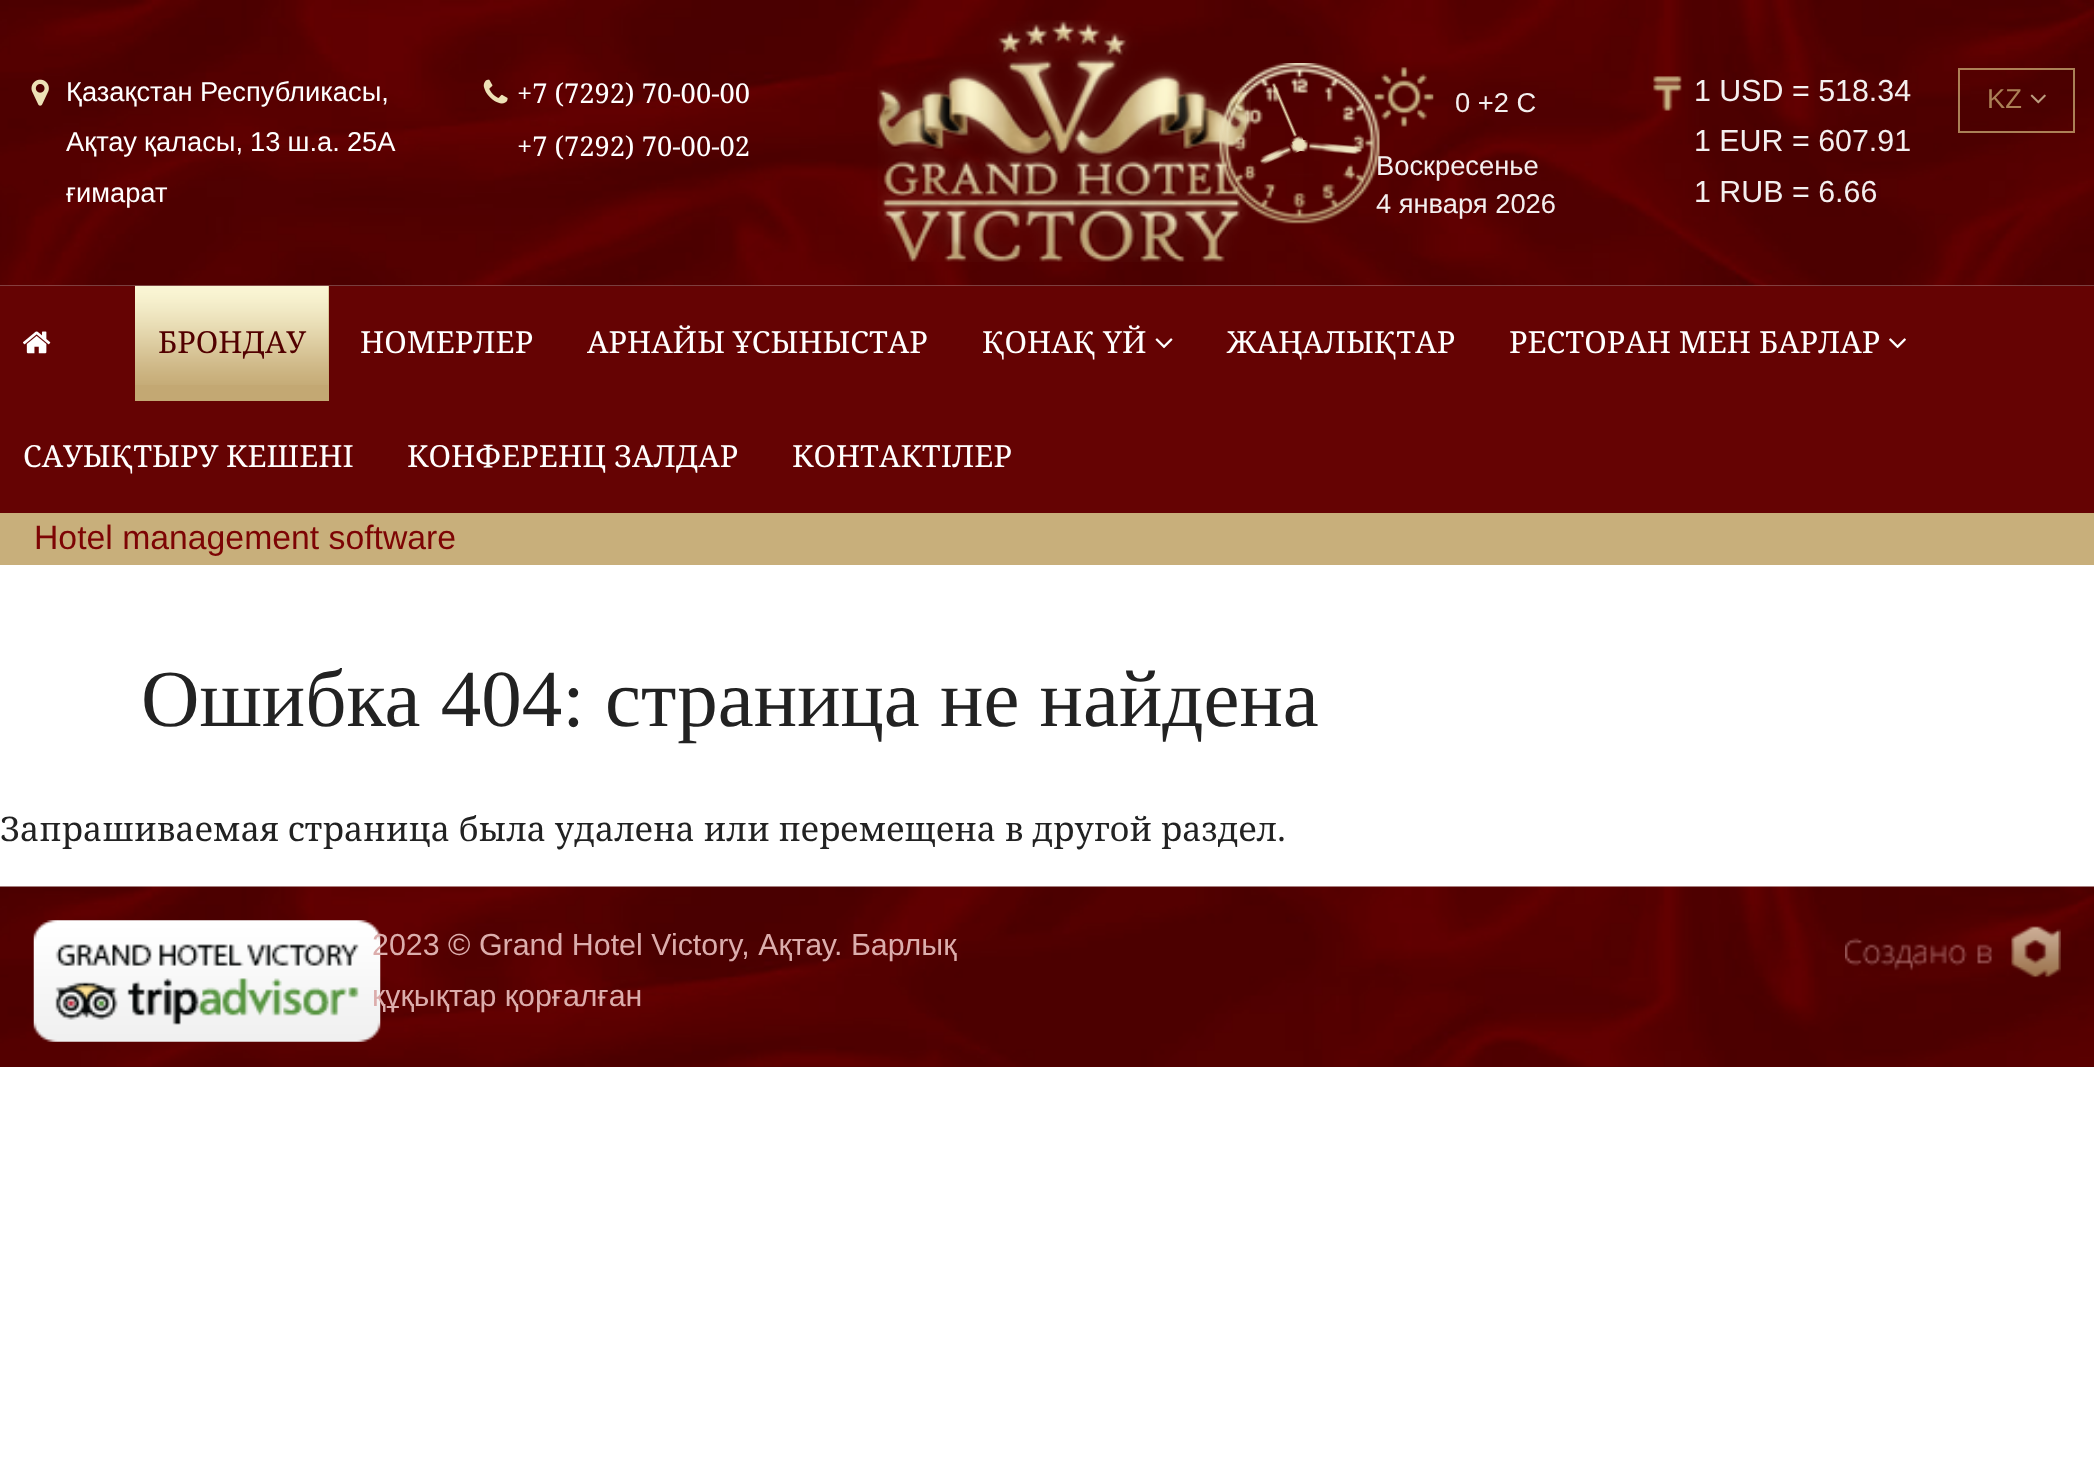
(async () => {
    const canvas = document.querySelector("canvas");
    canvas.width = 2094;
    canvas.height = 1484;
    const context = canvas.getContext("2d");
    context.miterLimit = 4;
    context.fontKerning = "normal";
    function write(s, x, y, font, color) {
        context.font = font;
        context.fillStyle = color;
        context.fillText(s, x, y);
    }
    function block(x, y, w, h, color) {
        context.fillStyle = color;
        context.fillRect(x, y, w, h);
    }
    async function photo(src, x, y, w, h) {
        const img = new Image();
        img.src = src;
        await img.decode();
        context.drawImage(img, x, y, w, h);
    }

    block(0, 0, 2094, 1484, "rgb(255, 255, 255)");
    await photo("media/1.png", 0, 0, 2094, 286);
    await photo("media/2.png", 31, 79, 18, 27);
    write("Қазақстан Республикасы,", 66, 101, "27.3px Liberation Sans", "rgb(255, 255, 255)");
    context.wordSpacing = "-0.5px";
    write("Ақтау қаласы, 13 ш.а. 25A", 66, 151, "27.3px Liberation Sans", "rgb(255, 255, 255)");
    context.wordSpacing = "0px";
    write("ғимарат", 66, 202, "27.3px Liberation Sans", "rgb(255, 255, 255)");
    await photo("media/3.png", 483, 79, 25, 25);
    write("+7 (7292) 70-00-00", 517, 103, "27.3px Noto Serif", "rgb(255, 255, 255)");
    write("+7 (7292) 70-00-02", 517, 156, "27.3px Noto Serif", "rgb(255, 255, 255)");
    await photo("media/4.png", 877, 20, 374, 242);
    await photo("media/9.png", 1374, 67, 60, 60);
    write("Воскресенье", 1376, 175, "27.3px Liberation Sans", "rgb(244, 239, 239)");
    write("4 января 2026", 1376, 213, "27.3px Liberation Sans", "rgb(244, 239, 239)");
    await photo("media/5.png", 1219, 63, 161, 161);
    await photo("media/6.png", 1271, 83, 35, 68);
    await photo("media/7.png", 1295, 139, 67, 16);
    await photo("media/8.png", 1260, 140, 44, 25);
    write("0 +2 C", 1455, 112, "27.3px Liberation Sans", "rgb(244, 239, 239)");
    await photo("media/10.png", 1653, 76, 29, 35);
    write("1 USD = 518.34", 1694, 101, "30.4px Liberation Sans", "rgb(244, 239, 239)");
    write("1 EUR = 607.91", 1694, 151, "30.4px Liberation Sans", "rgb(244, 239, 239)");
    write("1 RUB = 6.66", 1694, 202, "30.4px Liberation Sans", "rgb(244, 239, 239)");
    context.strokeStyle = "rgba(211, 183, 123, 0.7)";
    context.lineWidth = 2;
    context.strokeRect(1959, 69, 115, 63);
    write("KZ", 1987, 108, "27.3px Liberation Sans", "rgb(171, 128, 86)");
    await photo("media/11.png", 2030, 94, 16, 10);
    block(0, 286, 2094, 227, "rgb(101, 3, 3)");
    await photo("media/12.png", 23, 331, 28, 23);
    block(135, 286, 194, 115, "rgb(195, 168, 115)");
    await photo("media/13.png", 135, 285, 194, 100);
    write("БРОНДАУ", 158, 353, "30.4px Noto Serif", "rgb(82, 0, 0)");
    write("НОМЕРЛЕР", 360, 353, "30.4px Noto Serif", "rgb(255, 255, 255)");
    write("АРНАЙЫ ҰСЫНЫСТАР", 587, 353, "30.4px Noto Serif", "rgb(255, 255, 255)");
    write("ҚОНАҚ ҮЙ", 982, 353, "30.4px Noto Serif", "rgb(255, 255, 255)");
    await photo("media/14.png", 1155, 338, 18, 11);
    write("ЖАҢАЛЫҚТАР", 1227, 353, "30.4px Noto Serif", "rgb(255, 255, 255)");
    write("РЕСТОРАН МЕН БАРЛАР", 1509, 353, "30.4px Noto Serif", "rgb(255, 255, 255)");
    await photo("media/15.png", 1889, 338, 17, 11);
    write("САУЫҚТЫРУ КЕШЕНІ", 23, 467, "30.4px Noto Serif", "rgb(255, 255, 255)");
    write("КОНФЕРЕНЦ ЗАЛДАР", 407, 467, "30.4px Noto Serif", "rgb(255, 255, 255)");
    write("КОНТАКТІЛЕР", 792, 467, "30.4px Noto Serif", "rgb(255, 255, 255)");
    block(0, 513, 2094, 52, "rgb(200, 175, 123)");
    write("Hotel management software", 34, 549, "33.75px Liberation Sans", "rgb(125, 4, 4)");
    write("Ошибка 404: страница не найдена", 141, 726, "81px Liberation Serif", "rgb(34, 34, 34)");
    write("Запрашиваемая страница была удалена или перемещена в другой раздел.", 0, 841, "33.75px Noto Serif", "rgb(34, 34, 34)");
    block(0, 1066, 2094, 1, "rgb(83, 0, 0)");
    await photo("media/16.png", 0, 886, 2094, 181);
    await photo("media/17.png", 33, 920, 348, 122);
    write("2023 © Grand Hotel Victory, Ақтау. Барлық", 372, 955, "30.4px Liberation Sans", "rgb(220, 173, 172)");
    write("құқықтар қорғалған", 372, 1006, "30.4px Liberation Sans", "rgb(220, 173, 172)");
    await photo("media/18.png", 1845, 926, 216, 52);
})();
